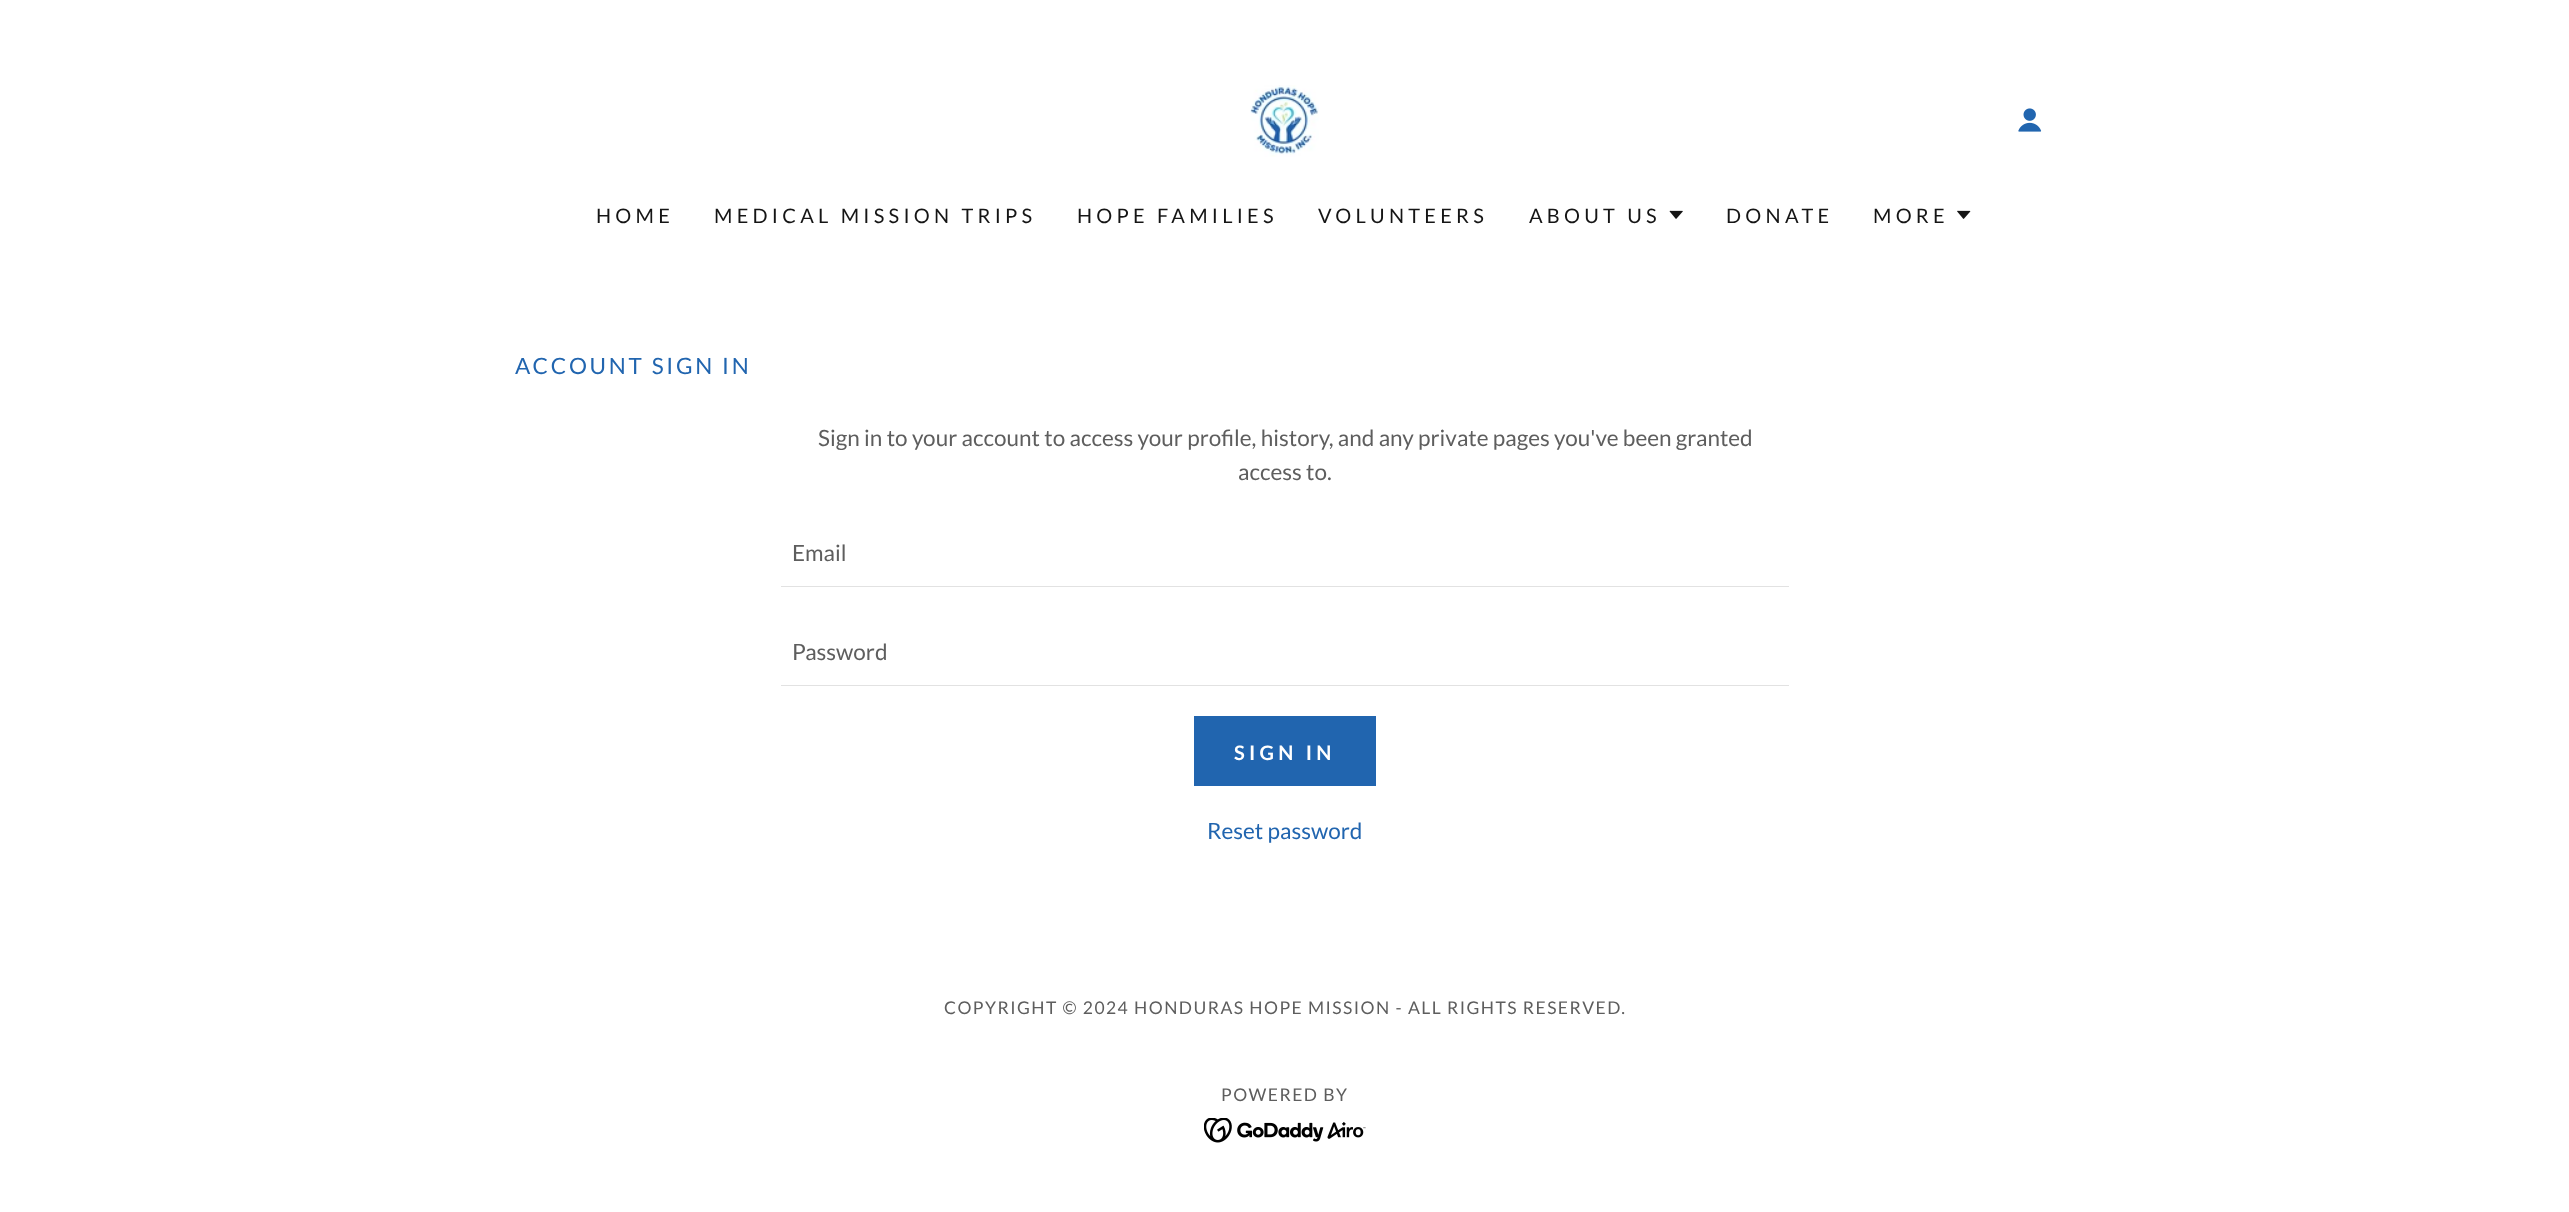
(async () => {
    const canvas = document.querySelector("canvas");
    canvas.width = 2569;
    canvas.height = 1212;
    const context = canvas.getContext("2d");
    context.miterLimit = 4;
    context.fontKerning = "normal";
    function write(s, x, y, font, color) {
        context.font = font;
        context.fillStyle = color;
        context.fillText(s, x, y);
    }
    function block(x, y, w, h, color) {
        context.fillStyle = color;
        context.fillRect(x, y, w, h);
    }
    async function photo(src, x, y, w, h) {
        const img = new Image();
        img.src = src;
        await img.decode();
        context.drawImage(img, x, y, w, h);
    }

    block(0, 0, 2569, 1212, "rgb(255, 255, 255)");
    await photo("media/1.png", 1250, 85, 69, 72);
    await photo("media/2.png", 2018, 108, 24, 24);
    context.letterSpacing = "4.25px";
    write("HOME", 596, 223, "20px Lato", "rgb(21, 21, 21)");
    write("MEDICAL MISSION TRIPS", 714, 223, "20px Lato", "rgb(21, 21, 21)");
    write("HOPE FAMILIES", 1077, 223, "20px Lato", "rgb(21, 21, 21)");
    write("VOLUNTEERS", 1318, 223, "20px Lato", "rgb(21, 21, 21)");
    write("ABOUT US", 1529, 223, "20px Lato", "rgb(21, 21, 21)");
    await photo("media/3.png", 1669, 210, 14, 9);
    write("DONATE", 1726, 223, "20px Lato", "rgb(21, 21, 21)");
    write("MORE", 1873, 223, "20px Lato", "rgb(21, 21, 21)");
    await photo("media/4.png", 1957, 210, 14, 9);
    context.letterSpacing = "2.75px";
    write("ACCOUNT SIGN IN", 515, 374, "22.5px Lato", "rgb(33, 101, 175)");
    context.letterSpacing = "0px";
    write("Sign in to your account to access your profile, history, and any private pages you've been granted", 818, 446, "22.5px Lato", "rgb(94, 94, 94)");
    write("access to.", 1238, 480, "22.5px Lato", "rgb(94, 94, 94)");
    block(781, 586, 1008, 1, "rgb(226, 226, 226)");
    write("Email", 792, 561, "22.5px Lato", "rgb(94, 94, 94)");
    block(781, 685, 1008, 1, "rgb(226, 226, 226)");
    write("Password", 792, 660, "22.5px Lato", "rgb(94, 94, 94)");
    block(1194, 716, 182, 70, "rgb(33, 101, 175)");
    context.letterSpacing = "4.25px";
    write("SIGN IN", 1234, 760, "bold 20px Lato", "rgb(255, 255, 255)");
    context.letterSpacing = "0px";
    write("Reset password", 1207, 839, "22.5px Lato", "rgb(33, 101, 175)");
    context.letterSpacing = "1.45px";
    write("COPYRIGHT © 2024 HONDURAS HOPE MISSION - ALL RIGHTS RESERVED.", 944, 1014, "17.5px Lato", "rgb(94, 94, 94)");
    write("POWERED BY", 1221, 1101, "17.5px Lato", "rgb(94, 94, 94)");
    await photo("media/5.png", 1204, 1118, 162, 25);
})();
